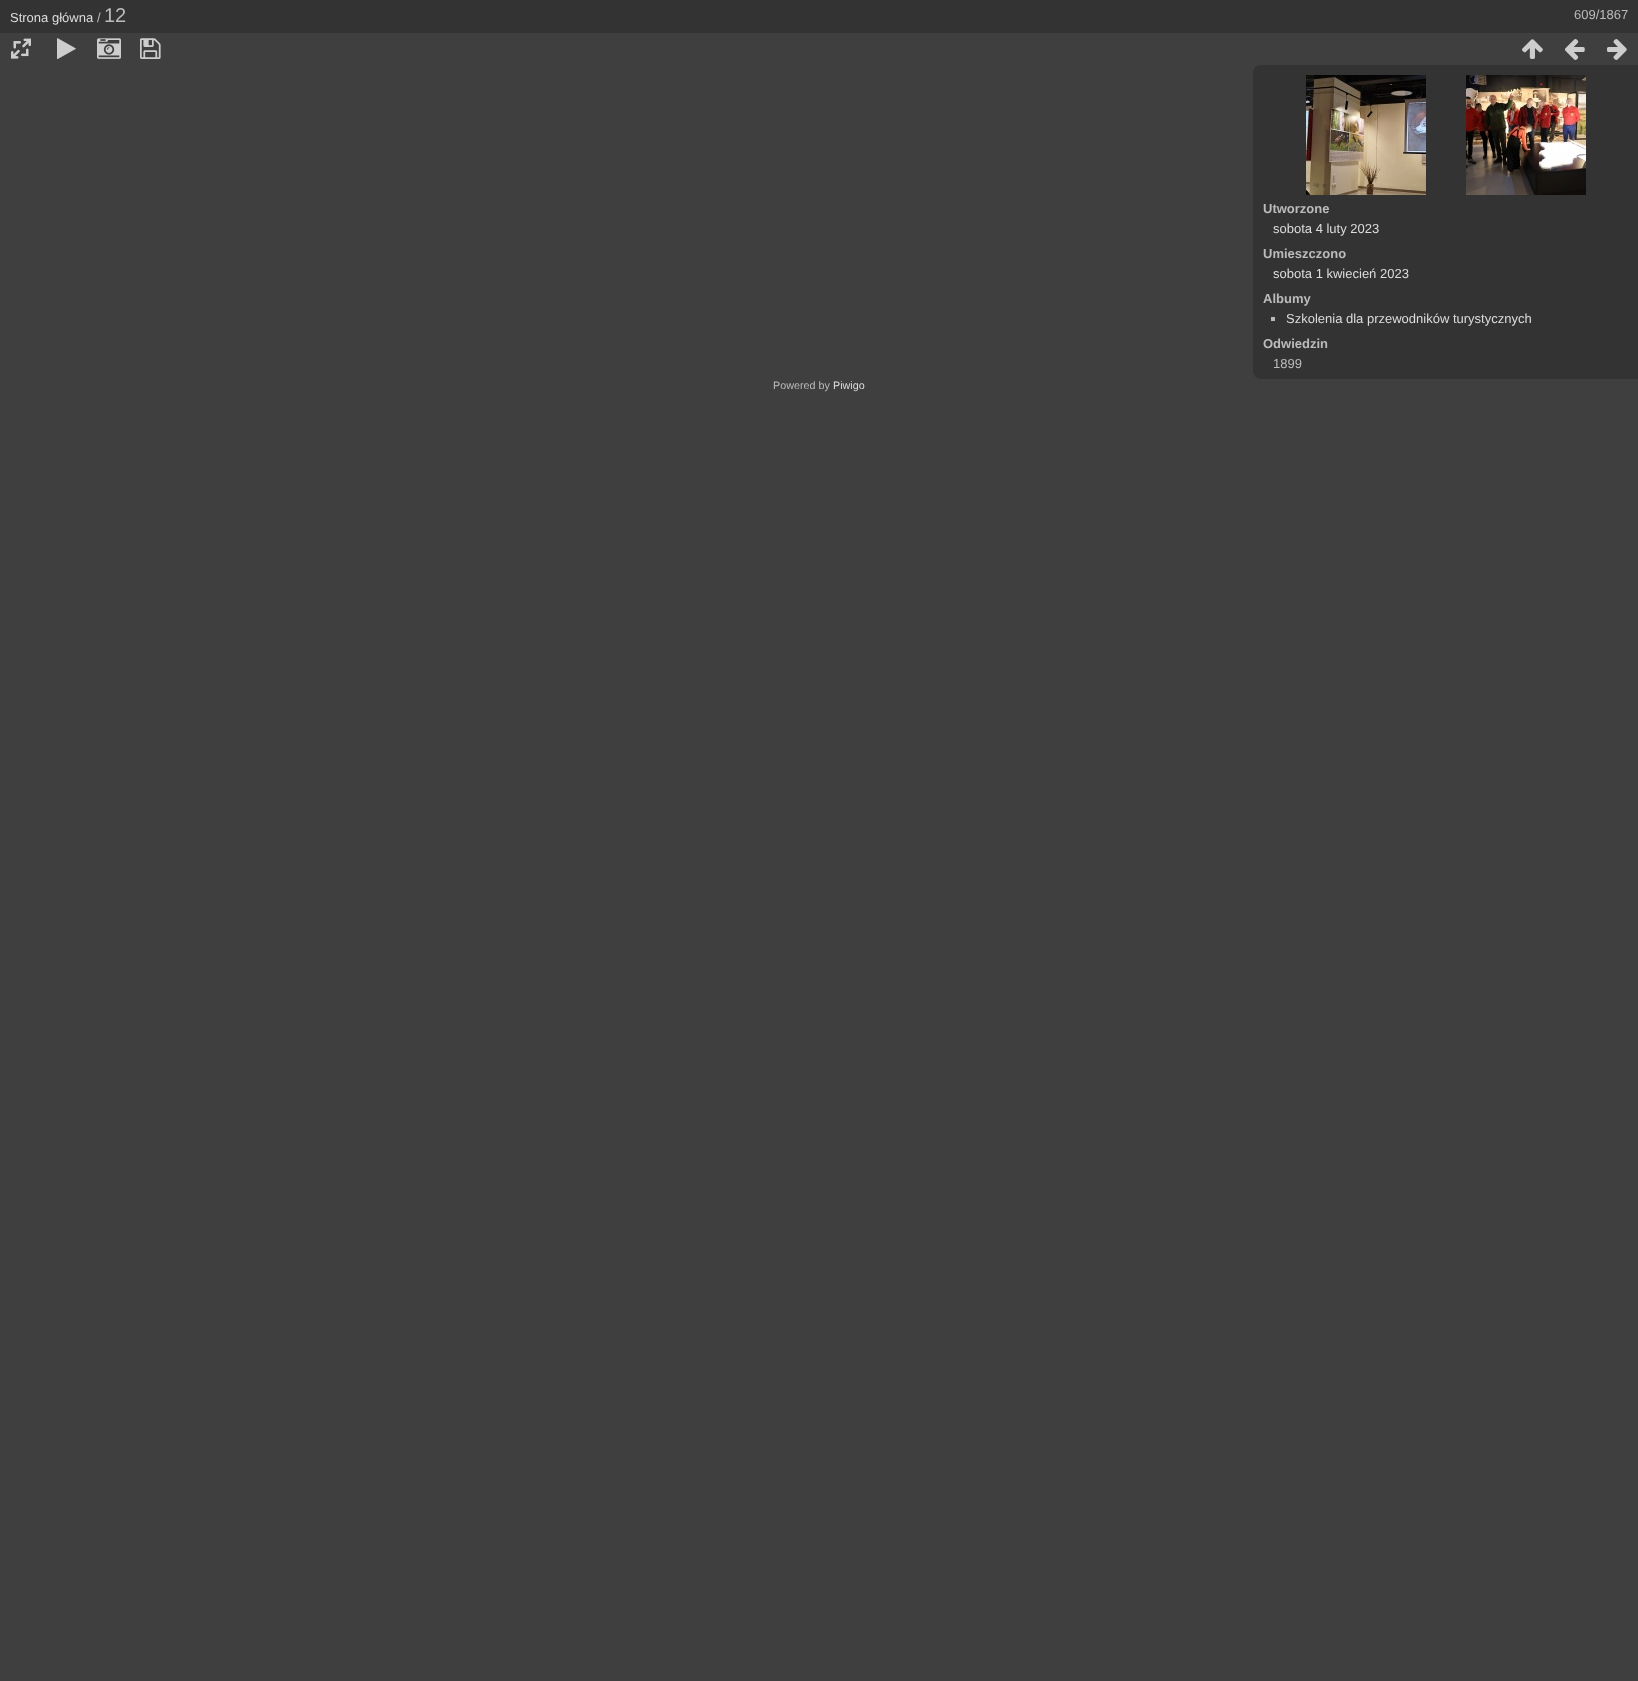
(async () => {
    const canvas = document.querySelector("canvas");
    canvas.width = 1638;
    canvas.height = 1681;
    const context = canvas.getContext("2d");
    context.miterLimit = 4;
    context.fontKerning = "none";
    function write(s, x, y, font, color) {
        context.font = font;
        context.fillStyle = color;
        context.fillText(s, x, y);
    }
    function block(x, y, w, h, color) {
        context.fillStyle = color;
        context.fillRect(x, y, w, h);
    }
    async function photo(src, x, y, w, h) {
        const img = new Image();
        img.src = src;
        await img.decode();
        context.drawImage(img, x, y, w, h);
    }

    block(0, 0, 1638, 1681, "rgb(63, 63, 63)");
    block(0, 0, 1638, 33, "rgb(51, 51, 51)");
    write("Strona główna", 10, 22, "13px Liberation Sans", "rgb(221, 221, 221)");
    write("/", 97, 22, "13px Liberation Sans", "rgb(187, 187, 187)");
    write("12", 104, 22, "20px Liberation Sans", "rgb(187, 187, 187)");
    write("609/1867", 1574, 19, "13px Liberation Sans", "rgb(187, 187, 187)");
    await photo("media/1.png", 11, 38, 20, 21);
    write("▶", 57, 57, "24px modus", "rgb(205, 205, 205)");
    await photo("media/2.png", 97, 38, 24, 21);
    write("💾", 140, 57, "24px modus", "rgb(205, 205, 205)");
    write("↑", 1522, 57, "24px modus", "rgb(205, 205, 205)");
    write("←", 1565, 57, "24px modus", "rgb(205, 205, 205)");
    write("→", 1607, 57, "24px modus", "rgb(205, 205, 205)");
    context.fillStyle = "rgb(51, 51, 51)";
    context.beginPath();
    context.roundRect(1253, 65, 385, 314, [8, 0, 0, 8]);
    context.fill();
    await photo("media/3.png", 1306, 75, 120, 120);
    await photo("media/4.png", 1466, 75, 120, 120);
    write("Utworzone", 1263, 213, "bold 13px Liberation Sans", "rgb(187, 187, 187)");
    write("sobota 4 luty 2023", 1273, 233, "13px Liberation Sans", "rgb(221, 221, 221)");
    write("Umieszczono", 1263, 258, "bold 13px Liberation Sans", "rgb(187, 187, 187)");
    write("sobota 1 kwiecień 2023", 1273, 278, "13px Liberation Sans", "rgb(221, 221, 221)");
    write("Albumy", 1263, 303, "bold 13px Liberation Sans", "rgb(187, 187, 187)");
    block(1271, 317, 4, 4, "rgb(187, 187, 187)");
    write("Szkolenia dla przewodników turystycznych", 1286, 323, "13px Liberation Sans", "rgb(221, 221, 221)");
    write("Odwiedzin", 1263, 348, "bold 13px Liberation Sans", "rgb(187, 187, 187)");
    write("1899", 1273, 368, "13px Liberation Sans", "rgb(187, 187, 187)");
    write("Powered by", 773, 389, "10.75px Liberation Sans", "rgb(187, 187, 187)");
    write("Piwigo", 833, 389, "10.75px Liberation Sans", "rgb(221, 221, 221)");
})();
